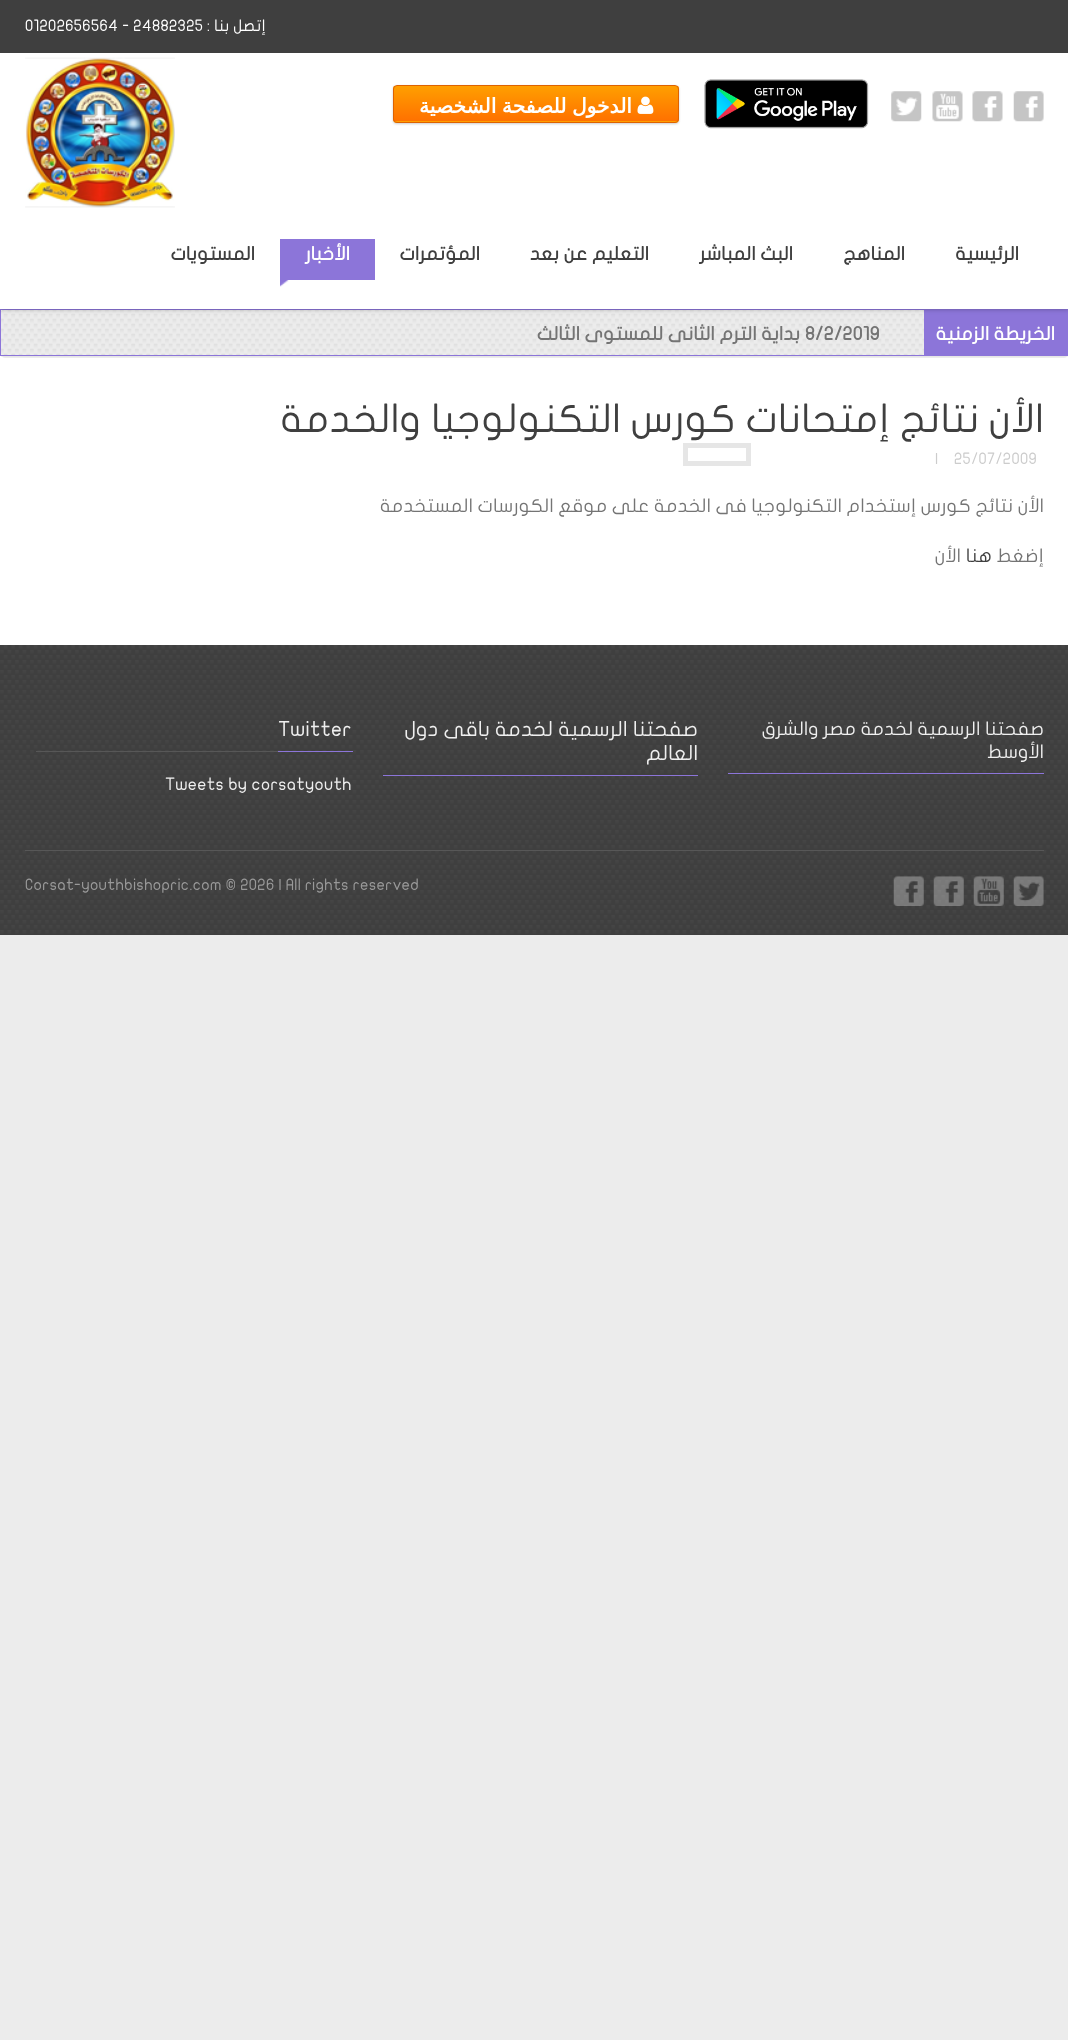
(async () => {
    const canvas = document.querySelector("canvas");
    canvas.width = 1068;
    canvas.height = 2040;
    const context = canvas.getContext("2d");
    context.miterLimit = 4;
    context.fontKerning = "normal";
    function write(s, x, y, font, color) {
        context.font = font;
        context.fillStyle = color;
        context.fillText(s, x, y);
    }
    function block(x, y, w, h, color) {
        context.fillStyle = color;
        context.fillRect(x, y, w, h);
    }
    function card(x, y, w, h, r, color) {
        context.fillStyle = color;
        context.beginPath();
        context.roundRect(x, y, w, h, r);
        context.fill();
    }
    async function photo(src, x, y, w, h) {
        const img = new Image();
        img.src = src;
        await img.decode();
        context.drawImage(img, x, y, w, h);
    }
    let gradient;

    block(0, 0, 1068, 2040, "rgb(236, 236, 236)");
    block(0, 310, 1068, 335, "rgb(255, 255, 255)");
    card(0, 309, 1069, 49, 5, "rgb(236, 236, 236)");
    await photo("media/9.png", 1, 310, 923, 45);
    context.strokeStyle = "rgb(140, 117, 217)";
    context.strokeRect(0.5, 309.5, 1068, 46);
    block(924, 310, 144, 45, "rgb(140, 117, 217)");
    context.fillStyle = "rgba(0, 0, 0, 0.3)";
    context.filter = "blur(2.5px)";
    context.beginPath();
    context.rect(0, 0, 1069, 309);
    context.fill();
    context.filter = "none";
    block(0, 53, 1068, 256, "rgb(255, 255, 255)");
    block(0, 0, 1068, 53, "rgb(63, 63, 63)");
    context.direction = "rtl";
    write("إتصل بنا :", 266, 31, "15.9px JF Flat", "rgb(255, 255, 255)");
    context.direction = "ltr";
    write("01202656564 - 24882325", 25, 31, "15.9px JF Flat", "rgb(255, 255, 255)");
    await photo("media/1.png", 1013, 91, 31, 31);
    await photo("media/2.png", 972, 91, 31, 31);
    await photo("media/3.png", 932, 91, 31, 31);
    await photo("media/4.png", 891, 91, 31, 31);
    await photo("media/5.png", 704, 79, 165, 50);
    context.fillStyle = "rgba(0, 0, 0, 0.2)";
    context.filter = "blur(1px)";
    context.beginPath();
    context.roundRect(393, 86, 286, 38, 4);
    context.fill();
    context.filter = "none";
    context.save();
    context.beginPath();
    context.roundRect(393, 85, 286, 38, 4);
    context.clip();
    gradient = context.createLinearGradient(536, 86, 536, 121);
    gradient.addColorStop(0, "rgb(255, 159, 0)");
    gradient.addColorStop(1, "rgb(255, 113, 0)");
    context.fillStyle = gradient;
    context.fillRect(393, 86, 286, 35);
    gradient = context.createLinearGradient(536, 121, 536, 156);
    gradient.addColorStop(0, "rgb(255, 159, 0)");
    gradient.addColorStop(1, "rgb(255, 113, 0)");
    context.fillStyle = gradient;
    context.fillRect(393, 121, 286, 2);
    context.restore();
    context.beginPath();
    context.roundRect(393.5, 85.5, 285, 37, 3.5);
    context.strokeStyle = "rgb(222, 98, 0)";
    context.stroke();
    await photo("media/6.png", 637, 96, 17, 18);
    context.wordSpacing = "-1px";
    context.direction = "rtl";
    write("الدخول للصفحة الشخصية", 632, 113, "bold 20.25px DejaVu Sans", "rgb(255, 255, 255)");
    await photo("media/7.png", 25, 57, 150, 151);
    context.wordSpacing = "0px";
    write("الرئيسية", 1019, 260, "bold 18.75px JF Flat", "rgb(63, 63, 63)");
    write("المناهج", 905, 260, "bold 18.75px JF Flat", "rgb(63, 63, 63)");
    write("البث المباشر", 793, 260, "bold 18.75px JF Flat", "rgb(63, 63, 63)");
    write("التعليم عن بعد", 649, 260, "bold 18.75px JF Flat", "rgb(63, 63, 63)");
    write("المؤتمرات", 480, 260, "bold 18.75px JF Flat", "rgb(63, 63, 63)");
    await photo("media/8.png", 280, 280, 9, 7);
    block(280, 239, 95, 41, "rgb(140, 117, 217)");
    write("الأخبار", 350, 260, "bold 18.75px JF Flat", "rgb(255, 255, 255)");
    write("المستويات", 255, 260, "bold 18.75px JF Flat", "rgb(63, 63, 63)");
    block(3, 356, 1063, 1, "rgb(230, 230, 230)");
    write("الخريطة الزمنية", 1055, 340, "bold 18.75px JF Flat", "rgb(255, 255, 255)");
    context.direction = "ltr";
    write("8/2/2019", 805, 340, "bold 18.75px JF Flat", "rgb(116, 116, 116)");
    context.direction = "rtl";
    write("بداية الترم الثانى للمستوى الثالث", 800, 340, "bold 18.75px JF Flat", "rgb(116, 116, 116)");
    write("الأن نتائج إمتحانات كورس التكنولوجيا والخدمة", 1044, 432, "39.4px JF Flat", "rgb(63, 63, 63)");
    context.direction = "ltr";
    write("25/07/2009", 954, 464, "15.9px JF Flat", "rgb(204, 204, 204)");
    write("|", 935, 464, "15.9px JF Flat", "rgb(204, 204, 204)");
    context.strokeStyle = "rgb(230, 230, 230)";
    context.lineWidth = 5;
    context.strokeRect(685.5, 445.5, 63, 18);
    context.direction = "rtl";
    write("الأن نتائج كورس إستخدام التكنولوجيا فى الخدمة على موقع الكورسات المستخدمة", 1044, 512, "18.75px JF Flat", "rgb(116, 116, 116)");
    write("إضغط", 1044, 562, "18.75px JF Flat", "rgb(116, 116, 116)");
    write("هنا", 992, 562, "18.75px JF Flat", "rgb(63, 63, 63)");
    write("الأن", 961, 562, "18.75px JF Flat", "rgb(116, 116, 116)");
    await photo("media/10.png", 0, 645, 1068, 290);
    block(728, 773, 316, 1, "rgb(140, 117, 217)");
    write("صفحتنا الرسمية لخدمة مصر والشرق", 1044, 735, "18.75px JF Flat", "rgb(239, 239, 239)");
    write("الأوسط", 1044, 758, "18.75px JF Flat", "rgb(239, 239, 239)");
    block(383, 775, 315, 1, "rgb(140, 117, 217)");
    write("صفحتنا الرسمية لخدمة باقى دول", 698, 736, "20.75px JF Flat", "rgb(239, 239, 239)");
    write("العالم", 698, 760, "20.75px JF Flat", "rgb(239, 239, 239)");
    block(36, 751, 242, 1, "rgb(87, 87, 87)");
    block(278, 751, 75, 1, "rgb(140, 117, 217)");
    context.direction = "ltr";
    write("Twitter", 278, 736, "20.75px JF Flat", "rgb(239, 239, 239)");
    write("Tweets by corsatyouth", 165, 790, "17.25px JF Flat", "rgb(239, 239, 239)");
    block(25, 850, 1019, 1, "rgb(87, 87, 87)");
    await photo("media/11.png", 1013, 876, 31, 30);
    await photo("media/12.png", 973, 876, 31, 30);
    await photo("media/13.png", 933, 876, 31, 30);
    await photo("media/14.png", 893, 876, 31, 30);
    write("Corsat-youthbishopric.com © 2026 | All rights reserved", 25, 890, "15.9px JF Flat", "rgb(153, 153, 153)");
})();
